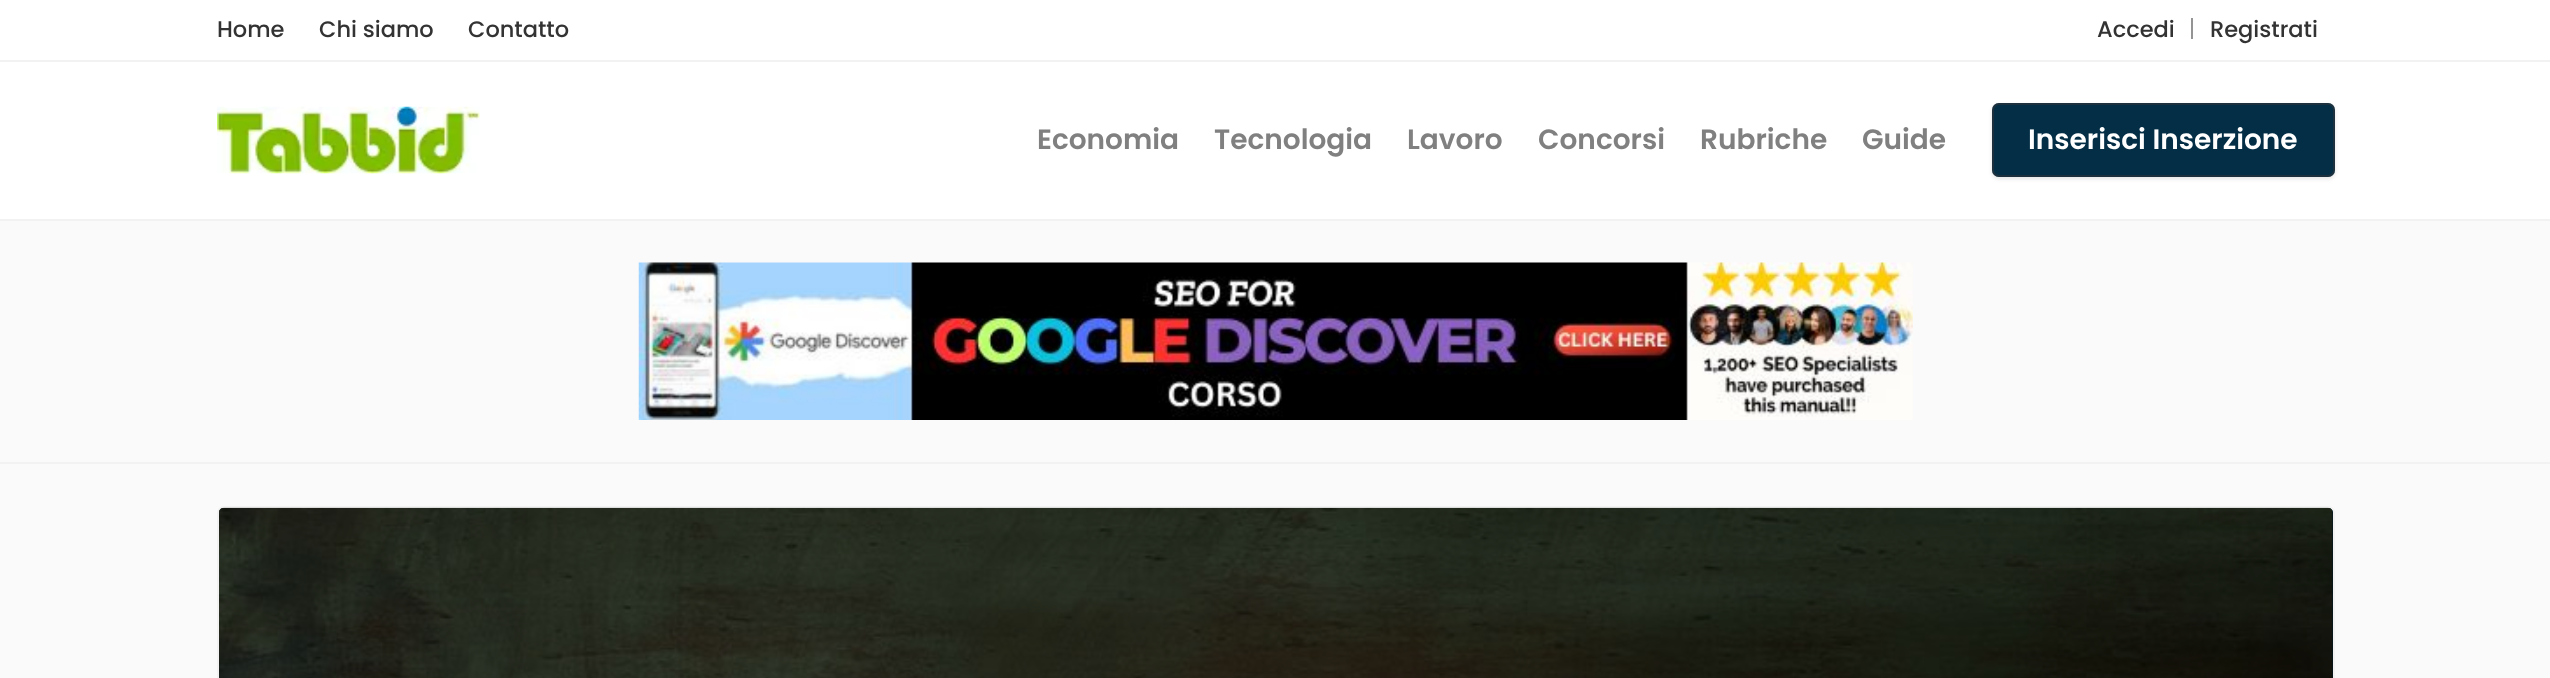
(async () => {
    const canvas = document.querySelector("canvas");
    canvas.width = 2550;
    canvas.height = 678;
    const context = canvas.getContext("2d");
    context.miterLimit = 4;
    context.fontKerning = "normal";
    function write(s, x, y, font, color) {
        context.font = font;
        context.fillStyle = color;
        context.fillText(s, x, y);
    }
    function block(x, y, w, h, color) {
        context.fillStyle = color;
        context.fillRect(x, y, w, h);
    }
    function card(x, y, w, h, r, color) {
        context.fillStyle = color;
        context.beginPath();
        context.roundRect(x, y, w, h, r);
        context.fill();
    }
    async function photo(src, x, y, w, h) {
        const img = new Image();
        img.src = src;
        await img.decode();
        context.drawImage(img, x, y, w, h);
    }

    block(0, 0, 2550, 678, "rgb(250, 250, 251)");
    block(0, 0, 2550, 219, "rgb(255, 255, 255)");
    block(0, 219, 2550, 2, "rgb(242, 242, 242)");
    block(0, 60, 2550, 2, "rgb(242, 242, 242)");
    write("Home", 217, 37, "500 22.5px Poppins", "rgb(51, 51, 51)");
    write("Chi siamo", 319, 37, "500 22.5px Poppins", "rgb(51, 51, 51)");
    write("Contatto", 468, 37, "500 22.5px Poppins", "rgb(51, 51, 51)");
    write("Accedi", 2097, 37, "500 22.5px Poppins", "rgb(51, 51, 51)");
    block(2191, 18, 2, 21, "rgb(148, 148, 148)");
    write("Registrati", 2210, 37, "500 22.5px Poppins", "rgb(51, 51, 51)");
    await photo("media/1.png", 217, 106, 263, 68);
    write("Economia", 1037, 149, "600 28px Poppins", "rgb(128, 128, 128)");
    write("Tecnologia", 1214, 149, "600 28px Poppins", "rgb(128, 128, 128)");
    write("Lavoro", 1407, 149, "600 28px Poppins", "rgb(128, 128, 128)");
    write("Concorsi", 1538, 149, "600 28px Poppins", "rgb(128, 128, 128)");
    write("Rubriche", 1700, 149, "600 28px Poppins", "rgb(128, 128, 128)");
    write("Guide", 1862, 149, "600 28px Poppins", "rgb(128, 128, 128)");
    context.fillStyle = "rgba(0, 0, 0, 0.1)";
    context.filter = "blur(2px)";
    context.beginPath();
    context.roundRect(1992, 105, 343, 74, 7);
    context.fill();
    context.filter = "none";
    card(1992, 103, 343, 74, 7, "rgb(4, 46, 70)");
    context.beginPath();
    context.roundRect(1993, 104, 341, 72, 6);
    context.strokeStyle = "rgba(54, 54, 54, 0.49)";
    context.lineWidth = 2;
    context.stroke();
    write("Inserisci Inserzione", 2028, 149, "600 28px Poppins", "rgb(255, 255, 255)");
    block(0, 462, 2550, 2, "rgb(242, 242, 242)");
    await photo("media/2.png", 638, 262, 1275, 158);
    context.beginPath();
    context.roundRect(218, 507, 2116, 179, 6);
    context.strokeStyle = "rgb(242, 242, 242)";
    context.stroke();
    context.fillStyle = "rgb(4, 46, 70)";
    context.beginPath();
    context.moveTo(224, 508);
    context.lineTo(2328, 508);
    context.bezierCurveTo(2331, 508, 2333, 510, 2333, 513);
    context.lineTo(2333, 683);
    context.lineTo(219, 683);
    context.lineTo(219, 513);
    context.bezierCurveTo(219, 510, 221, 508, 224, 508);
    context.closePath();
    context.fill();
    await photo("media/3.png", 219, 507, 2114, 171);
    context.fillStyle = "rgba(0, 0, 0, 0.5)";
    context.beginPath();
    context.moveTo(224, 508);
    context.lineTo(2328, 508);
    context.bezierCurveTo(2331, 508, 2333, 510, 2333, 513);
    context.lineTo(2333, 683);
    context.lineTo(219, 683);
    context.lineTo(219, 513);
    context.bezierCurveTo(219, 510, 221, 508, 224, 508);
    context.closePath();
    context.fill();
})();
